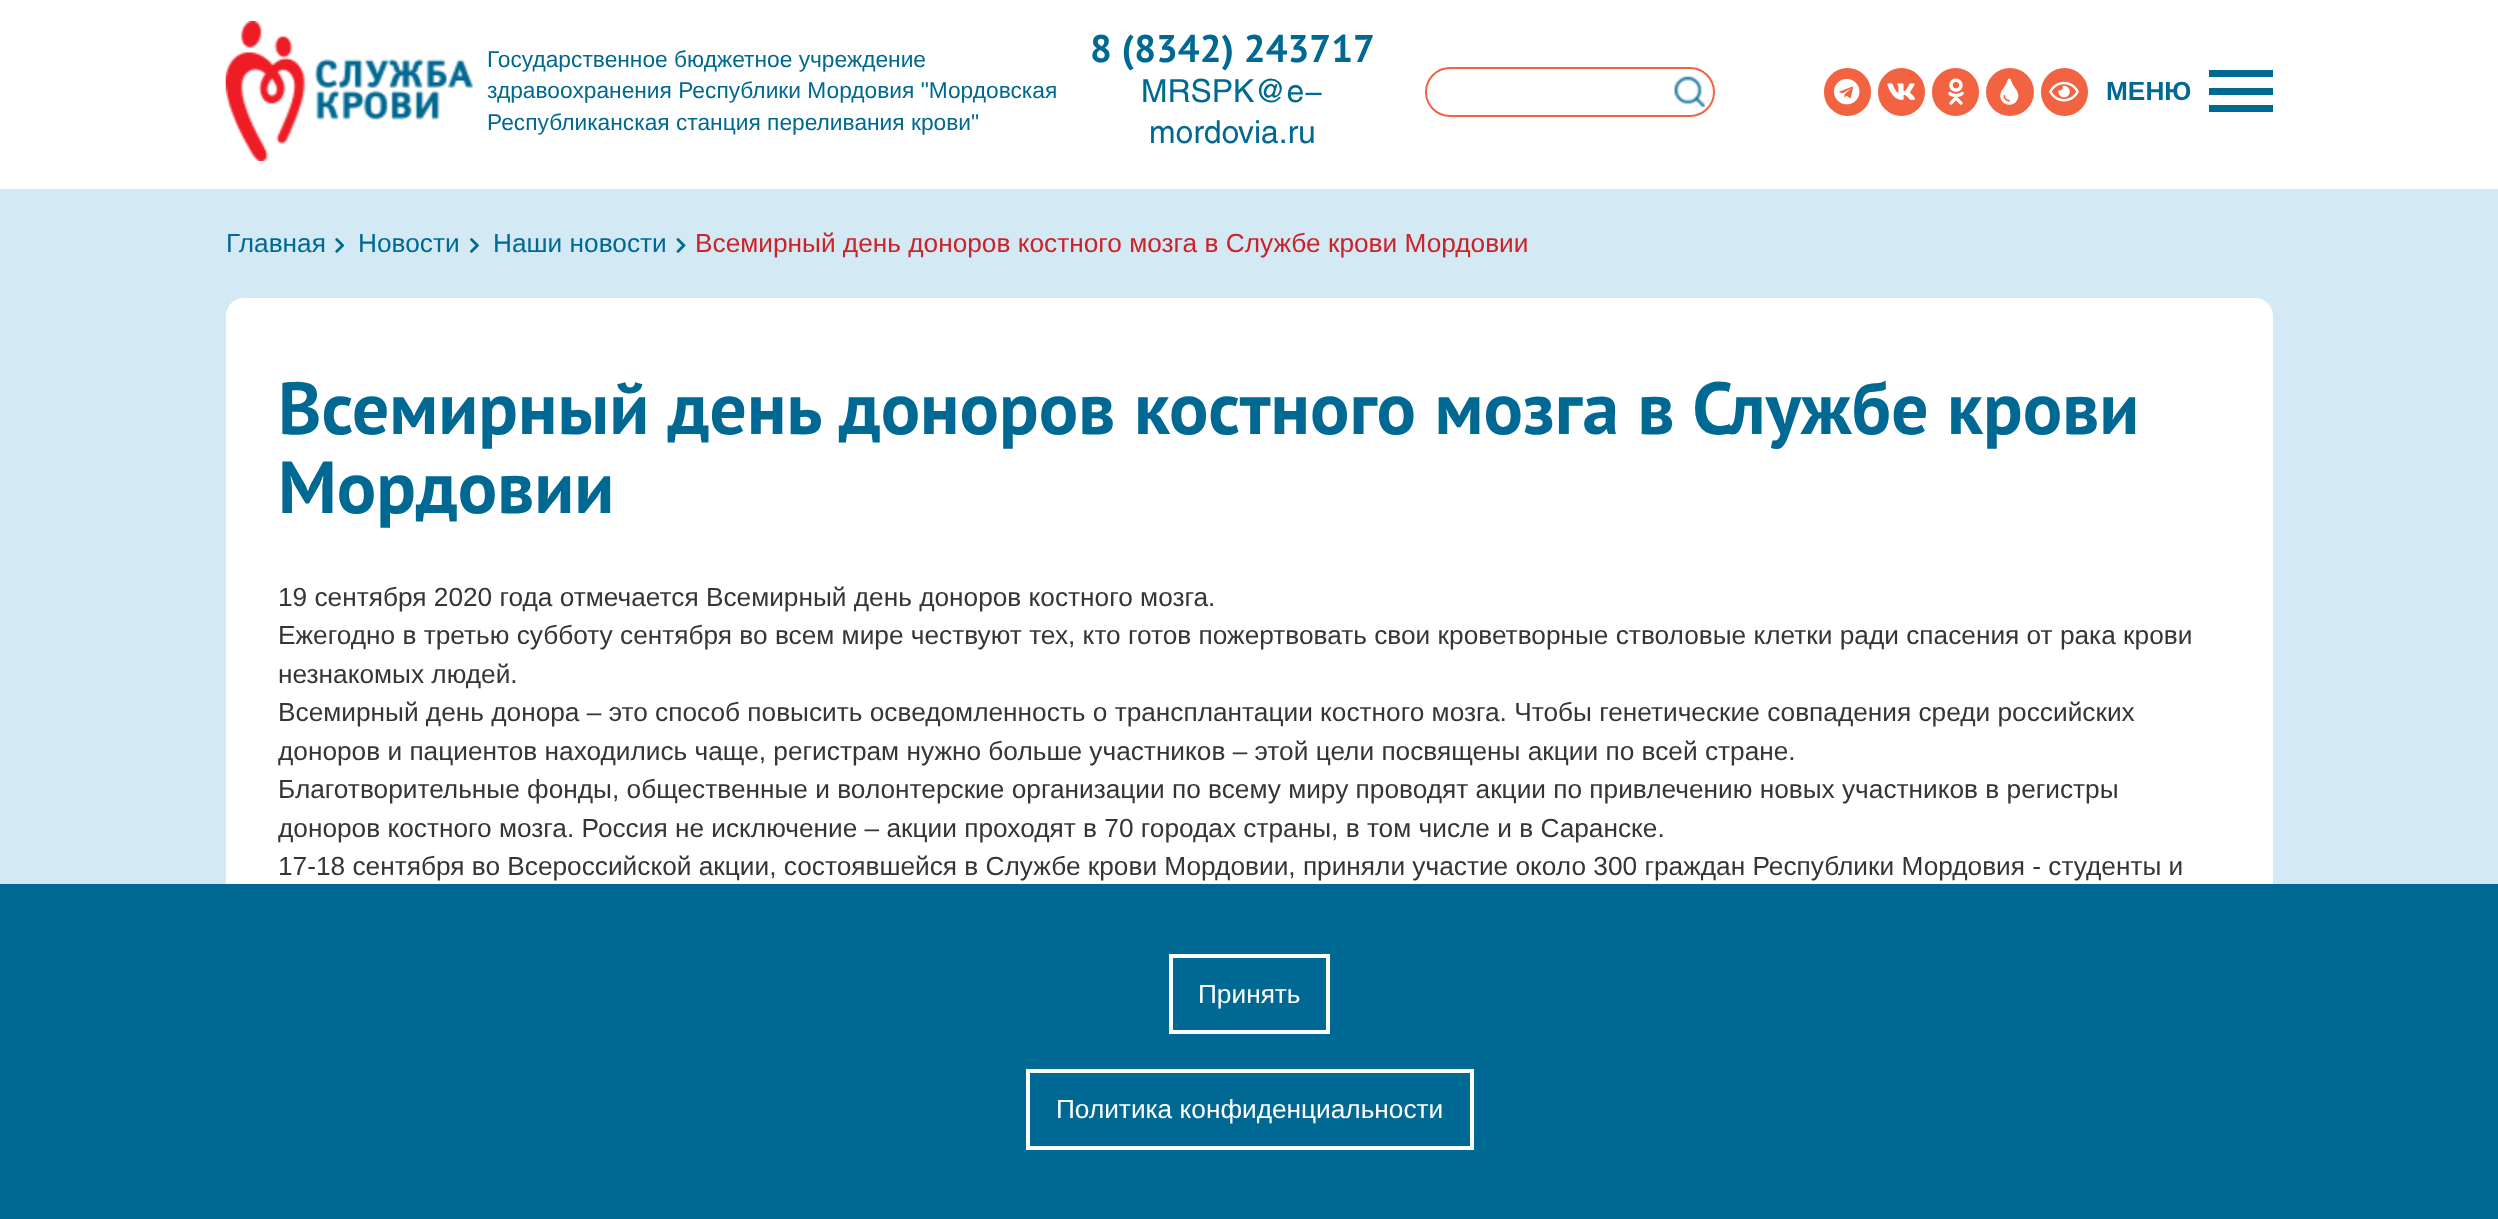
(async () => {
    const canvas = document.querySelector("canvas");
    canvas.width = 2498;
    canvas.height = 1219;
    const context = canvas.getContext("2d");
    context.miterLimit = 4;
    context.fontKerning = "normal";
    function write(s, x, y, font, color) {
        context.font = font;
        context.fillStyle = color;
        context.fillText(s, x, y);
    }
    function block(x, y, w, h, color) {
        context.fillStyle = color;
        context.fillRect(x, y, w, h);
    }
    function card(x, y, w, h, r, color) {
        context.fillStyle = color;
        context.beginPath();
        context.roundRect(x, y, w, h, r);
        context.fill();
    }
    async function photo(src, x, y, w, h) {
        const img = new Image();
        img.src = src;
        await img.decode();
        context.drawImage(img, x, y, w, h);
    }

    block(0, 0, 2498, 1219, "rgb(255, 255, 255)");
    await photo("media/1.png", 225, 21, 248, 140);
    write("Государственное бюджетное учреждение", 487, 67, "22.75px Liberation Sans", "rgb(0, 105, 147)");
    write("здравоохранения Республики Мордовия \"Мордовская", 487, 98, "22.75px Liberation Sans", "rgb(0, 105, 147)");
    write("Республиканская станция переливания крови\"", 487, 130, "22.75px Liberation Sans", "rgb(0, 105, 147)");
    write("8 (8342) 243717", 1090, 62, "bold 38.5px PT Sans", "rgb(0, 105, 147)");
    write("MRSPK@e-", 1141, 102, "31.5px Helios", "rgb(0, 105, 147)");
    write("mordovia.ru", 1149, 143, "31.5px Helios", "rgb(0, 105, 147)");
    context.beginPath();
    context.roundRect(1426, 68, 288, 48, 24);
    context.strokeStyle = "rgb(242, 99, 65)";
    context.lineWidth = 2;
    context.stroke();
    await photo("media/2.png", 1674, 76, 31, 31);
    card(1824, 68, 47, 48, 23.5, "rgb(242, 99, 65)");
    await photo("media/3.png", 1834, 78, 26, 27);
    card(1878, 68, 47, 48, 23.5, "rgb(242, 99, 65)");
    await photo("media/4.png", 1887, 83, 28, 17);
    card(1932, 68, 47, 48, 23.5, "rgb(242, 99, 65)");
    await photo("media/5.png", 1948, 78, 16, 27);
    context.beginPath();
    context.arc(2010, 92, 24, 0, Math.PI * 2);
    context.fill();
    await photo("media/6.png", 2000, 78, 19, 27);
    card(2041, 68, 47, 48, 23.5, "rgb(242, 99, 65)");
    await photo("media/7.png", 2049, 81, 30, 21);
    write("МЕНЮ", 2106, 100, "bold 26.25px Liberation Sans", "rgb(0, 105, 147)");
    block(2209, 70, 64, 7, "rgb(0, 105, 147)");
    block(2209, 88, 64, 7, "rgb(0, 105, 147)");
    block(2209, 105, 64, 7, "rgb(0, 105, 147)");
    block(0, 189, 2498, 695, "rgb(211, 233, 243)");
    write("Главная", 226, 252, "26.25px Liberation Sans", "rgb(0, 105, 147)");
    await photo("media/8.png", 335, 238, 10, 15);
    write("Новости", 358, 252, "26.25px Liberation Sans", "rgb(0, 105, 147)");
    await photo("media/9.png", 470, 238, 9, 15);
    write("Наши новости", 493, 252, "26.25px Liberation Sans", "rgb(0, 105, 147)");
    await photo("media/10.png", 676, 238, 10, 15);
    write("Всемирный день доноров костного мозга в Службе крови Мордовии", 695, 252, "26.25px Liberation Sans", "rgb(204, 34, 41)");
    card(226, 298, 2047, 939, 18, "rgb(255, 255, 255)");
    write("Всемирный день доноров костного мозга в Службе крови", 278, 434, "bold 73.5px PT Sans", "rgb(0, 105, 147)");
    write("Мордовии", 278, 513, "bold 73.5px PT Sans", "rgb(0, 105, 147)");
    write("19 сентября 2020 года отмечается Всемирный день доноров костного мозга.", 278, 606, "26.25px Liberation Sans", "rgb(53, 53, 53)");
    write("Ежегодно в третью субботу сентября во всем мире чествуют тех, кто готов пожертвовать свои кроветворные стволовые клетки ради спасения от рака крови", 278, 644, "26.25px Liberation Sans", "rgb(53, 53, 53)");
    write("незнакомых людей.", 278, 683, "26.25px Liberation Sans", "rgb(53, 53, 53)");
    write("Всемирный день донора – это способ повысить осведомленность о трансплантации костного мозга. Чтобы генетические совпадения среди российских", 278, 721, "26.25px Liberation Sans", "rgb(53, 53, 53)");
    write("доноров и пациентов находились чаще, регистрам нужно больше участников – этой цели посвящены акции по всей стране.", 278, 760, "26.25px Liberation Sans", "rgb(53, 53, 53)");
    write("Благотворительные фонды, общественные и волонтерские организации по всему миру проводят акции по привлечению новых участников в регистры", 278, 798, "26.25px Liberation Sans", "rgb(53, 53, 53)");
    write("доноров костного мозга. Россия не исключение – акции проходят в 70 городах страны, в том числе и в Саранске.", 278, 837, "26.25px Liberation Sans", "rgb(53, 53, 53)");
    write("17-18 сентября во Всероссийской акции, состоявшейся в Службе крови Мордовии, приняли участие около 300 граждан Республики Мордовия - студенты и", 278, 875, "26.25px Liberation Sans", "rgb(53, 53, 53)");
    block(0, 884, 2498, 335, "rgb(0, 105, 147)");
    context.strokeStyle = "rgb(255, 255, 255)";
    context.lineWidth = 4;
    context.strokeRect(1171, 956, 157, 76);
    write("Принять", 1198, 1003, "26.25px Liberation Sans", "rgb(255, 255, 255)");
    context.strokeRect(1028, 1071, 444, 77);
    write("Политика конфиденциальности", 1056, 1118, "26.25px Liberation Sans", "rgb(255, 255, 255)");
})();
